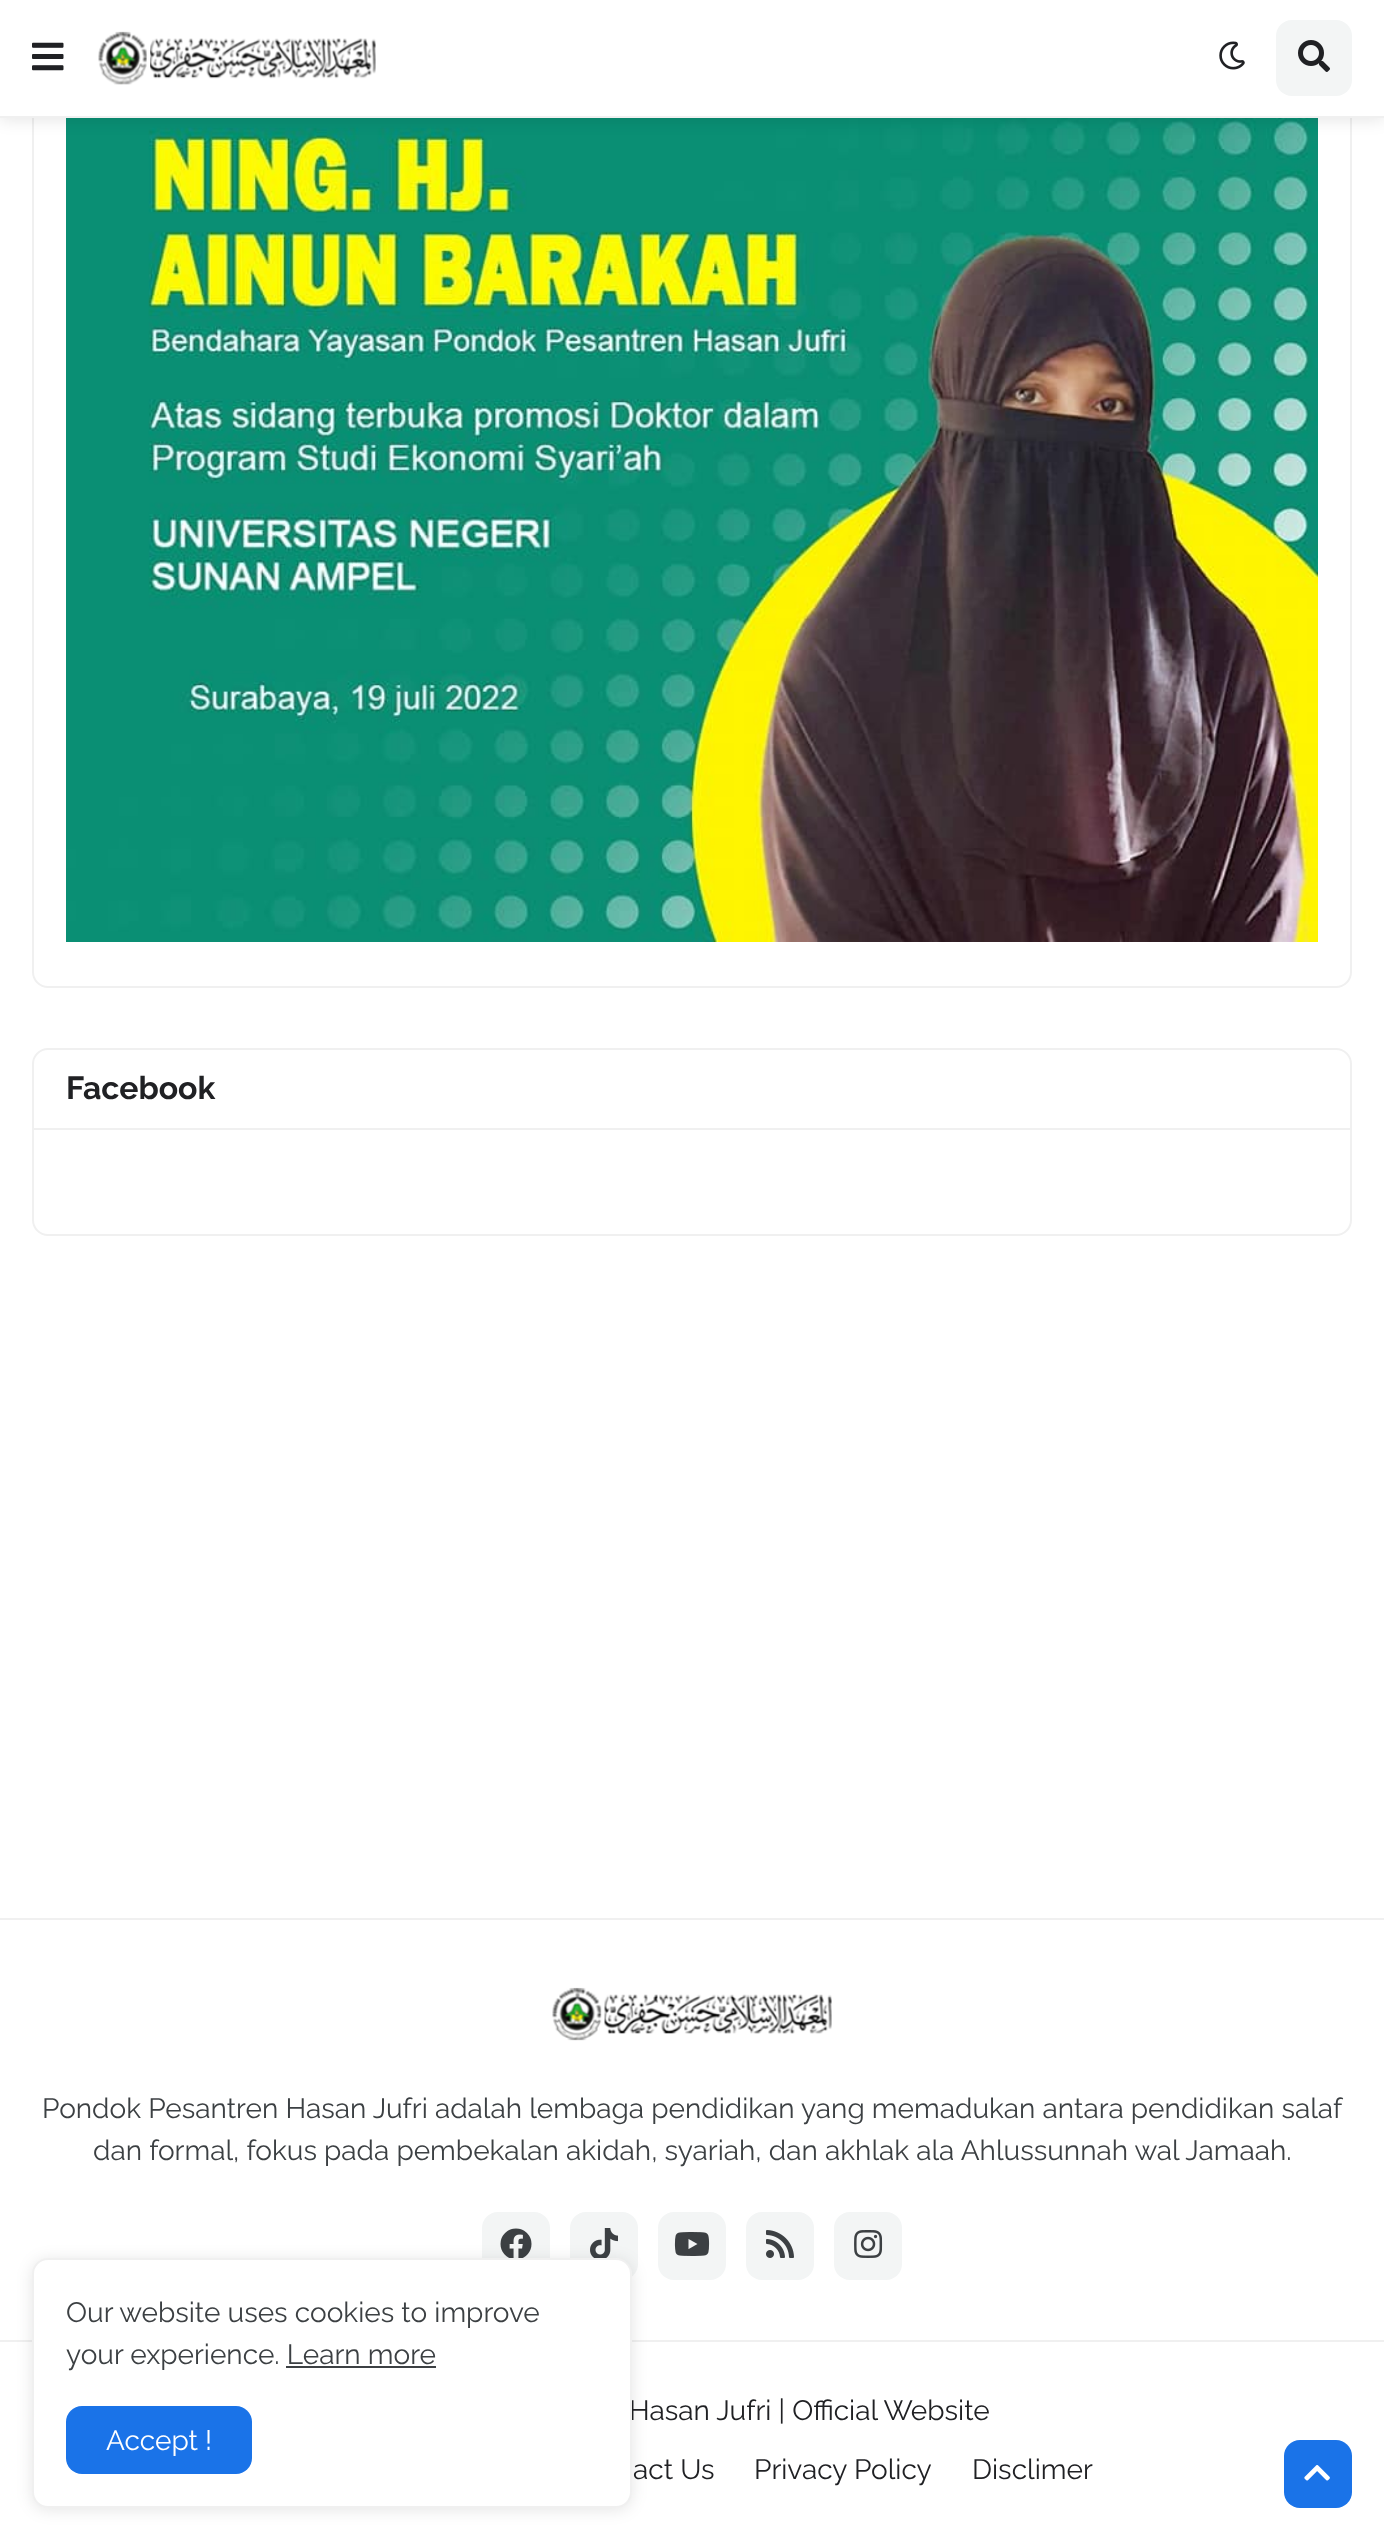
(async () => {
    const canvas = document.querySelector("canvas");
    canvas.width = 1384;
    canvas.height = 2540;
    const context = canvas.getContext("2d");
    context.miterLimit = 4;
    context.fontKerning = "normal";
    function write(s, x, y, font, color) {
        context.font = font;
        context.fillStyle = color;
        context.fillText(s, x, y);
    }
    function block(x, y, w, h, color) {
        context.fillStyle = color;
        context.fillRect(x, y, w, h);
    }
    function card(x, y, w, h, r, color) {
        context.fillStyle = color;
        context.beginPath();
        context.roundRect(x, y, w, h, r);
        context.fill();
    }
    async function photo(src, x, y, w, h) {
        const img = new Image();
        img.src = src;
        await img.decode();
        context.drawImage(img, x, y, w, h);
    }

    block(0, 0, 1384, 2540, "rgb(255, 255, 255)");
    context.beginPath();
    context.roundRect(33, -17, 1318, 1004, 15);
    context.strokeStyle = "rgb(240, 240, 240)";
    context.lineWidth = 2;
    context.stroke();
    await photo("media/5.png", 66, 118, 1252, 824);
    context.fillStyle = "rgba(0, 0, 0, 0.1)";
    context.filter = "blur(8px)";
    context.beginPath();
    context.rect(0, 2, 1384, 118);
    context.fill();
    context.filter = "none";
    block(0, 0, 1384, 116, "rgb(255, 255, 255)");
    block(0, 116, 1384, 2, "rgb(240, 240, 240)");
    await photo("media/1.png", 32, 42, 32, 29);
    await photo("media/2.png", 98, 31, 278, 54);
    await photo("media/3.png", 1219, 41, 26, 29);
    card(1276, 20, 76, 76, 16, "rgb(243, 245, 245)");
    await photo("media/4.png", 1298, 40, 32, 32);
    context.beginPath();
    context.roundRect(33, 1049, 1318, 186, 15);
    context.stroke();
    block(34, 1128, 1316, 2, "rgb(240, 240, 240)");
    write("Facebook", 66, 1099, "bold 32px Raleway", "rgb(32, 33, 36)");
    block(0, 1918, 1384, 2, "rgb(240, 240, 240)");
    await photo("media/6.png", 552, 1987, 280, 54);
    write("Pondok Pesantren Hasan Jufri adalah lembaga pendidikan yang memadukan antara pendidikan salaf", 42, 2118, "28px Raleway", "rgb(60, 64, 67)");
    write("dan formal, fokus pada pembekalan akidah, syariah, dan akhlak ala Ahlussunnah wal Jamaah.", 93, 2160, "28px Raleway", "rgb(60, 64, 67)");
    card(482, 2212, 68, 68, 16, "rgb(243, 245, 245)");
    await photo("media/7.png", 500, 2228, 32, 30);
    card(570, 2212, 68, 68, 16, "rgb(243, 245, 245)");
    await photo("media/8.png", 590, 2228, 28, 30);
    card(658, 2212, 68, 68, 16, "rgb(243, 245, 245)");
    await photo("media/9.png", 674, 2232, 36, 24);
    card(746, 2212, 68, 68, 16, "rgb(243, 245, 245)");
    await photo("media/10.png", 766, 2230, 28, 28);
    card(834, 2212, 68, 68, 16, "rgb(243, 245, 245)");
    await photo("media/11.png", 854, 2230, 29, 28);
    block(0, 2340, 1384, 2, "rgb(240, 240, 240)");
    write("Hasan Jufri | Official Website", 629, 2420, "28px Raleway", "rgb(32, 33, 36)");
    write("act Us", 633, 2479, "28px Raleway", "rgb(32, 33, 36)");
    write("Privacy Policy", 754, 2479, "28px Raleway", "rgb(32, 33, 36)");
    write("Disclimer", 972, 2479, "28px Raleway", "rgb(32, 33, 36)");
    context.fillStyle = "rgba(0, 0, 0, 0.1)";
    context.filter = "blur(8px)";
    context.beginPath();
    context.roundRect(32, 2260, 600, 250, 16);
    context.fill();
    context.filter = "none";
    card(32, 2258, 600, 250, 16, "rgb(255, 255, 255)");
    context.beginPath();
    context.roundRect(33, 2259, 598, 248, 15);
    context.strokeStyle = "rgba(155, 155, 155, 0.15)";
    context.stroke();
    write("Our website uses cookies to improve", 66, 2322, "28px Raleway", "rgb(60, 64, 67)");
    write("your experience. Learn more", 66, 2364, "28px Raleway", "rgb(60, 64, 67)");
    block(286, 2366, 150, 2, "rgb(60, 64, 67)");
    card(66, 2406, 186, 68, 16, "rgb(26, 115, 232)");
    write("Accept !", 106, 2450, "28px Raleway", "rgb(255, 255, 255)");
    card(1284, 2440, 68, 68, 16, "rgb(26, 115, 232)");
    await photo("media/12.png", 1304, 2465, 26, 16);
})();
